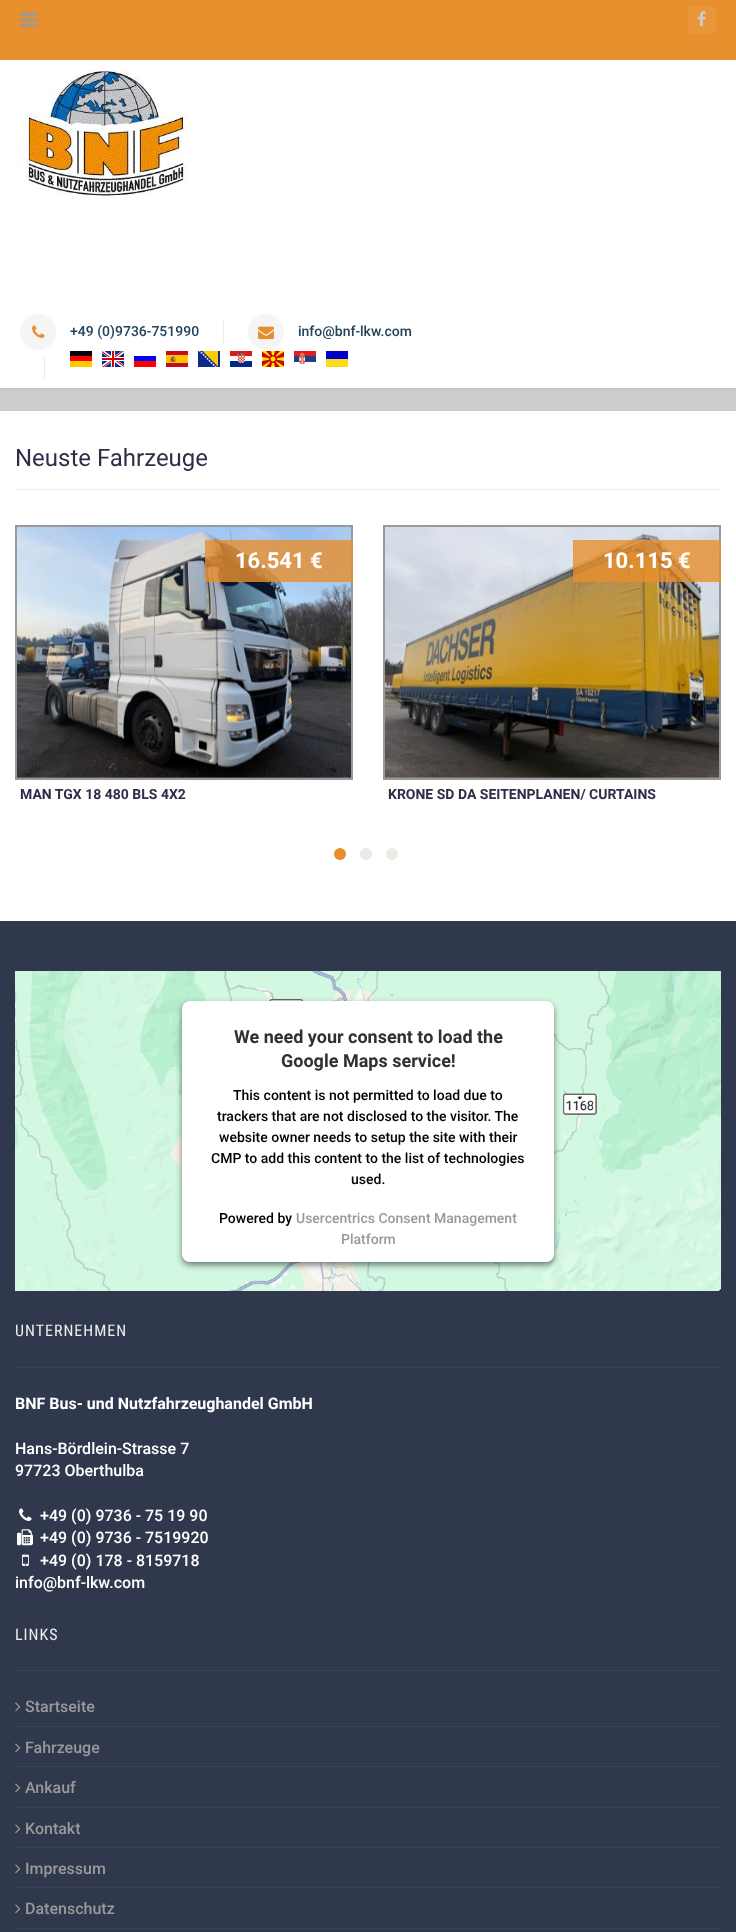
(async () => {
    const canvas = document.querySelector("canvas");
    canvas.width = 736;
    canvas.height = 1932;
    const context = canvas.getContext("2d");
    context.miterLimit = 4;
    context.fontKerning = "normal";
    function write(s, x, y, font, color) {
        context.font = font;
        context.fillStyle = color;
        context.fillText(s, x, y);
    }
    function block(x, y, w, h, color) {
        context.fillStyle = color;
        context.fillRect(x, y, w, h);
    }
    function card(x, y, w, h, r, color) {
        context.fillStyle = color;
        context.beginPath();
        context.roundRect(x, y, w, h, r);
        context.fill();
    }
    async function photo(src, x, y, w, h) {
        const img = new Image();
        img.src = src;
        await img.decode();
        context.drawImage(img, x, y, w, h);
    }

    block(0, 0, 736, 1932, "rgb(255, 255, 255)");
    block(0, 388, 736, 23, "rgb(204, 204, 204)");
    context.save();
    context.beginPath();
    context.rect(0, 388, 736, 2);
    context.clip();
    context.fillStyle = "rgba(0, 0, 0, 0.08)";
    context.filter = "blur(1.5px)";
    context.beginPath();
    context.rect(0, 1, 736, 388);
    context.fill();
    context.filter = "none";
    context.restore();
    block(0, 0, 736, 60, "rgb(232, 143, 45)");
    await photo("media/1.png", 20, 12, 18, 15);
    card(688, 6, 28, 28, 3, "rgb(233, 149, 56)");
    await photo("media/2.png", 697, 11, 9, 16);
    await photo("media/3.png", 20, 70, 167, 130);
    context.fillStyle = "rgb(245, 245, 245)";
    context.beginPath();
    context.arc(38, 332, 18, 0, Math.PI * 2);
    context.fill();
    await photo("media/4.png", 32, 325, 13, 13);
    write("+49 (0)9736-751990", 70, 336, "500 14px Roboto", "rgb(35, 67, 91)");
    block(223, 320, 1, 24, "rgb(234, 234, 234)");
    context.fillStyle = "rgb(245, 245, 245)";
    context.beginPath();
    context.arc(266, 332, 18, 0, Math.PI * 2);
    context.fill();
    await photo("media/5.png", 258, 326, 16, 14);
    write("info@bnf-lkw.com", 298, 336, "500 14px Roboto", "rgb(35, 67, 91)");
    block(44, 356, 1, 24, "rgb(234, 234, 234)");
    await photo("media/6.png", 70, 351, 22, 16);
    await photo("media/7.png", 102, 351, 22, 16);
    await photo("media/8.png", 134, 356, 22, 11);
    await photo("media/9.png", 166, 351, 22, 16);
    await photo("media/10.png", 198, 351, 22, 16);
    await photo("media/11.png", 230, 351, 22, 16);
    await photo("media/12.png", 262, 351, 22, 16);
    await photo("media/13.png", 294, 351, 22, 13);
    await photo("media/14.png", 326, 351, 22, 16);
    block(15, 489, 706, 1, "rgb(238, 238, 238)");
    write("Neuste Fahrzeuge", 15, 466, "24px Roboto", "rgb(49, 45, 72)");
    context.strokeStyle = "rgb(154, 153, 153)";
    context.lineWidth = 2;
    context.strokeRect(16, 526, 336, 253);
    await photo("media/15.png", 17, 527, 334, 251);
    block(205, 540, 148, 42, "rgba(232, 143, 45, 0.8)");
    write("16.541 €", 235, 568, "bold 22px Roboto", "rgb(255, 255, 255)");
    write("MAN TGX 18 480 BLS 4X2", 20, 799, "bold 14px Roboto", "rgb(49, 45, 72)");
    context.strokeRect(384, 526, 336, 253);
    await photo("media/16.png", 385, 527, 334, 251);
    block(573, 540, 148, 42, "rgba(232, 143, 45, 0.8)");
    write("10.115 €", 603, 568, "bold 22px Roboto", "rgb(255, 255, 255)");
    write("KRONE SD DA SEITENPLANEN/ CURTAINS", 388, 799, "bold 14px Roboto", "rgb(49, 45, 72)");
    context.fillStyle = "rgb(232, 143, 45)";
    context.beginPath();
    context.arc(340, 854, 6, 0, Math.PI * 2);
    context.fill();
    context.fillStyle = "rgb(236, 234, 228)";
    context.beginPath();
    context.arc(366, 854, 6, 0, Math.PI * 2);
    context.fill();
    context.beginPath();
    context.arc(392, 854, 6, 0, Math.PI * 2);
    context.fill();
    block(0, 921, 736, 1011, "rgb(47, 56, 76)");
    await photo("media/17.png", 15, 971, 706, 320);
    context.fillStyle = "rgba(0, 0, 0, 0.5)";
    context.filter = "blur(3px)";
    context.beginPath();
    context.roundRect(182, 1004, 372, 261, 8);
    context.fill();
    context.filter = "none";
    card(182, 1001, 372, 261, 8, "rgb(255, 255, 255)");
    write("We need your consent to load the", 234, 1043, "bold 18px Roboto", "rgb(48, 48, 48)");
    write("Google Maps service!", 281, 1067, "bold 18px Roboto", "rgb(48, 48, 48)");
    write("This content is not permitted to load due to", 233, 1100, "500 14px Roboto", "rgb(0, 0, 0)");
    write("trackers that are not disclosed to the visitor. The", 217, 1121, "500 14px Roboto", "rgb(0, 0, 0)");
    write("website owner needs to setup the site with their", 219, 1142, "500 14px Roboto", "rgb(0, 0, 0)");
    write("CMP to add this content to the list of technologies", 211, 1163, "500 14px Roboto", "rgb(0, 0, 0)");
    write("used.", 351, 1184, "500 14px Roboto", "rgb(0, 0, 0)");
    write("Powered by", 219, 1223, "500 14px Roboto", "rgb(0, 0, 0)");
    write("Usercentrics Consent Management", 296, 1223, "500 14px Roboto", "rgb(153, 153, 153)");
    write("Platform", 341, 1244, "500 14px Roboto", "rgb(153, 153, 153)");
    block(15, 1367, 706, 1, "rgb(57, 66, 85)");
    context.letterSpacing = "1px";
    write("UNTERNEHMEN", 15, 1336, "16px Roboto Condensed", "rgb(238, 238, 238)");
    context.letterSpacing = "0px";
    write("BNF Bus- und Nutzfahrzeughandel GmbH", 15, 1409, "bold 16px Roboto", "rgb(255, 255, 255)");
    write("Hans-Bördlein-Strasse 7", 15, 1454, "500 16px Roboto", "rgb(255, 255, 255)");
    write("97723 Oberthulba", 15, 1476, "500 16px Roboto", "rgb(255, 255, 255)");
    await photo("media/18.png", 19, 1508, 13, 13);
    write("+49 (0) 9736 - 75 19 90", 40, 1521, "500 16px Roboto", "rgb(255, 255, 255)");
    await photo("media/19.png", 17, 1529, 16, 17);
    write("+49 (0) 9736 - 7519920", 40, 1543, "500 16px Roboto", "rgb(255, 255, 255)");
    await photo("media/20.png", 22, 1554, 7, 12);
    write("+49 (0) 178 - 8159718", 40, 1566, "500 16px Roboto", "rgb(255, 255, 255)");
    write("info@bnf-lkw.com", 15, 1588, "500 16px Roboto", "rgb(255, 255, 255)");
    block(15, 1670, 706, 1, "rgb(57, 66, 85)");
    context.letterSpacing = "1px";
    write("LINKS", 15, 1640, "16px Roboto Condensed", "rgb(238, 238, 238)");
    block(15, 1726, 706, 1, "rgb(57, 66, 85)");
    await photo("media/21.png", 15, 1702, 6, 10);
    context.letterSpacing = "0px";
    write("Startseite", 25, 1712, "500 16px Roboto", "rgb(153, 153, 153)");
    block(15, 1766, 706, 1, "rgb(57, 66, 85)");
    await photo("media/21.png", 15, 1743, 6, 10);
    write("Fahrzeuge", 25, 1753, "500 16px Roboto", "rgb(153, 153, 153)");
    block(15, 1807, 706, 1, "rgb(57, 66, 85)");
    await photo("media/21.png", 15, 1783, 6, 10);
    write("Ankauf", 25, 1793, "500 16px Roboto", "rgb(153, 153, 153)");
    block(15, 1847, 706, 1, "rgb(57, 66, 85)");
    await photo("media/21.png", 15, 1824, 6, 10);
    write("Kontakt", 25, 1834, "500 16px Roboto", "rgb(153, 153, 153)");
    block(15, 1887, 706, 1, "rgb(57, 66, 85)");
    await photo("media/21.png", 15, 1864, 6, 10);
    write("Impressum", 25, 1874, "500 16px Roboto", "rgb(153, 153, 153)");
    block(15, 1928, 706, 1, "rgb(57, 66, 85)");
    await photo("media/21.png", 15, 1904, 6, 10);
    write("Datenschutz", 25, 1914, "500 16px Roboto", "rgb(153, 153, 153)");
})();
